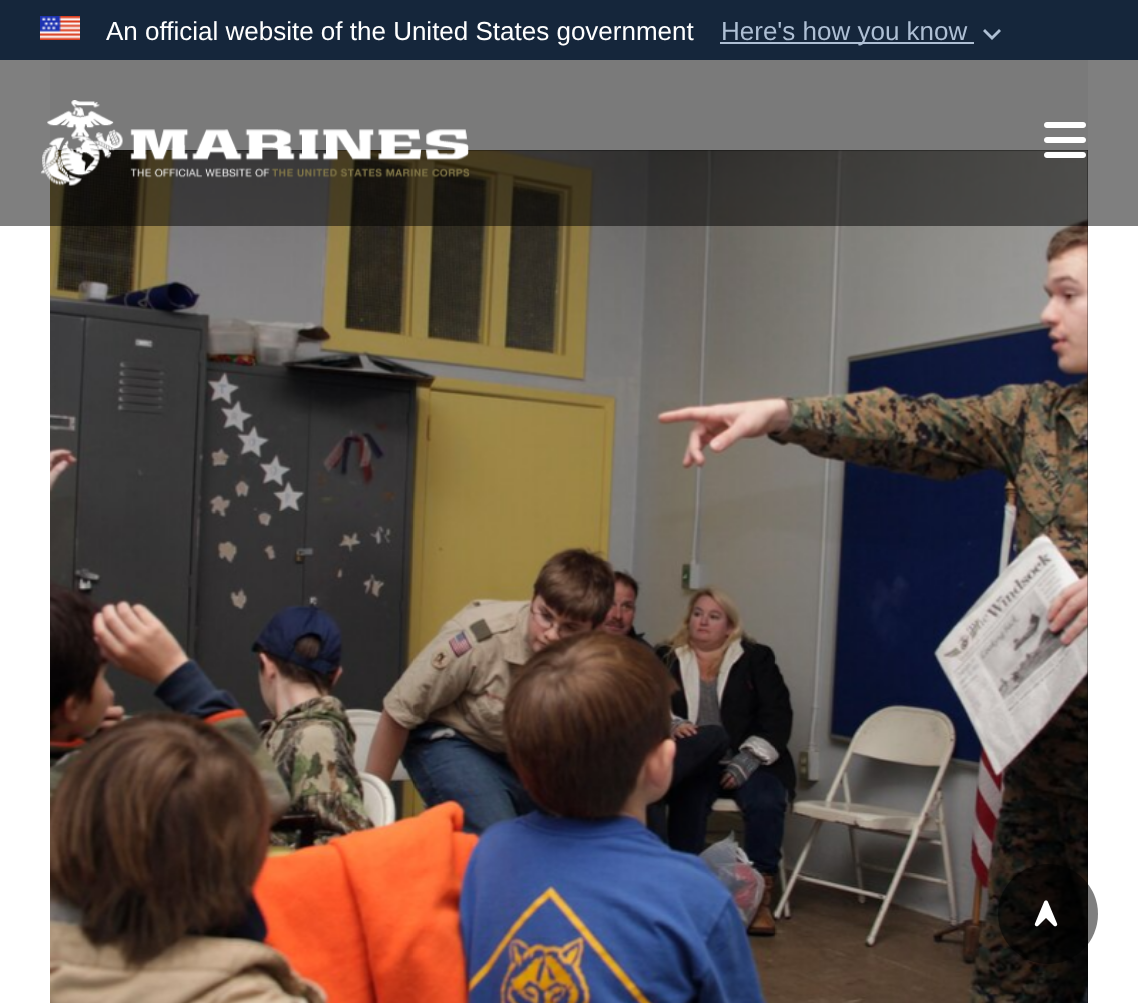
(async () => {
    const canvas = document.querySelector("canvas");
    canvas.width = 1138;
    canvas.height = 1003;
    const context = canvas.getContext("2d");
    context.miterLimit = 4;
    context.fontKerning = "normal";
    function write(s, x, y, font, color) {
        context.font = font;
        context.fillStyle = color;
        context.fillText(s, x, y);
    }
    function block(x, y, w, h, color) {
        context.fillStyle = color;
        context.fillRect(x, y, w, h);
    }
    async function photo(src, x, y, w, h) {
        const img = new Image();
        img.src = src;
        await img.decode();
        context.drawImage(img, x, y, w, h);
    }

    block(0, 0, 1138, 1003, "rgb(255, 255, 255)");
    block(0, 0, 1138, 60, "rgb(21, 38, 59)");
    await photo("media/1.png", 40, 16, 40, 24);
    write("An official website of the United States government", 106, 40, "26px Liberation Sans", "rgb(255, 255, 255)");
    block(720, 42, 254, 2, "rgb(174, 191, 212)");
    write("Here's how you know", 721, 40, "26px Liberation Sans", "rgb(174, 191, 212)");
    context.beginPath();
    context.moveTo(999, 29);
    context.lineTo(992, 36);
    context.lineTo(985, 29);
    context.lineTo(983, 31);
    context.lineTo(992, 40);
    context.lineTo(1001, 31);
    context.closePath();
    context.fill();
    block(50, 60, 1038, 90, "rgb(244, 244, 244)");
    block(50, 150, 1038, 853, "rgb(0, 0, 0)");
    await photo("media/4.png", 50, 150, 1038, 853);
    block(0, 60, 1138, 166, "rgba(0, 0, 0, 0.5)");
    await photo("media/2.png", 40, 100, 430, 86);
    await photo("media/3.png", 1044, 122, 42, 36);
    context.beginPath();
    context.arc(1048, 914, 50, 0, Math.PI * 2);
    context.fill();
    await photo("media/5.png", 1034, 900, 24, 27);
})();
